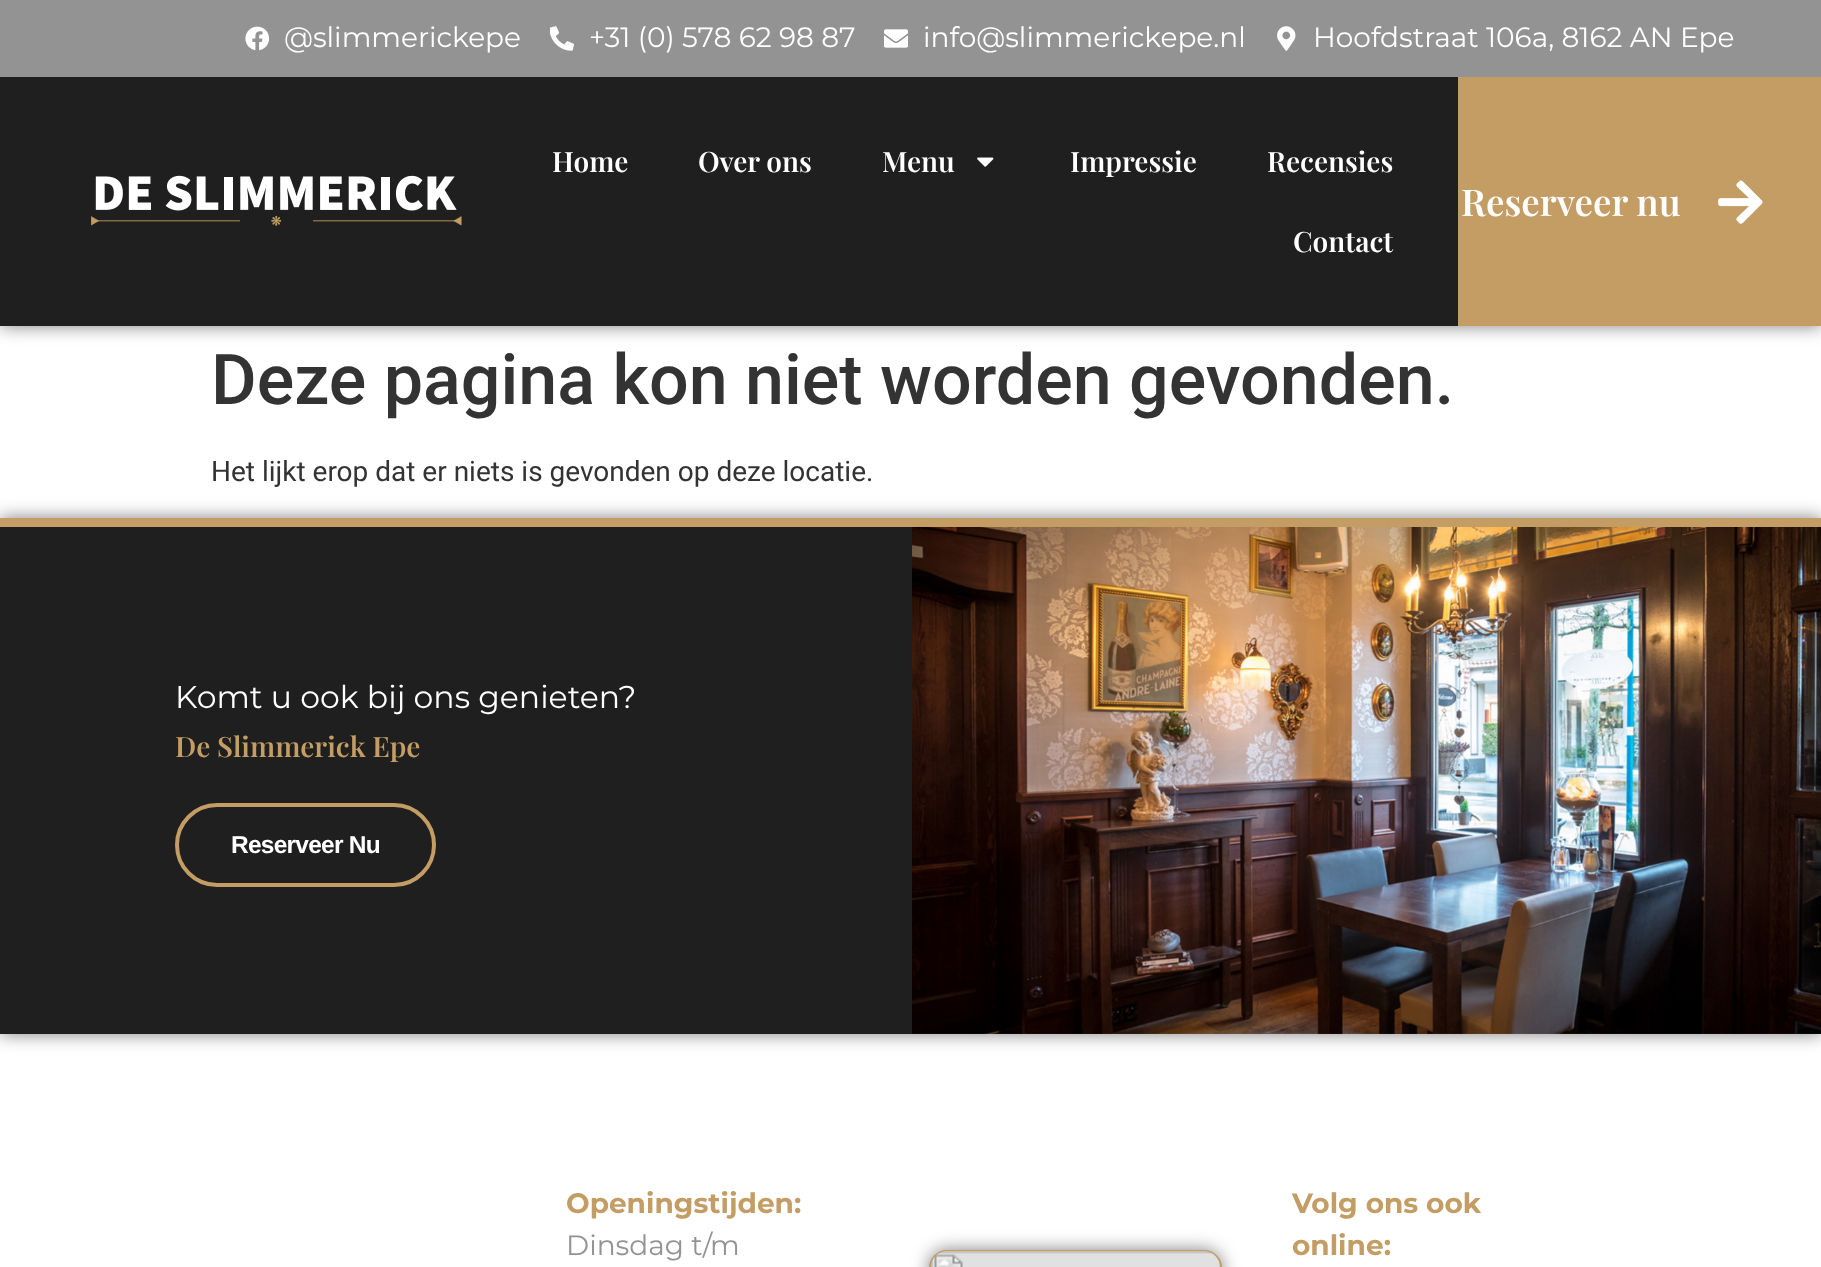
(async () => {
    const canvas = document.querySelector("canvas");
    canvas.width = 1821;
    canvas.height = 1267;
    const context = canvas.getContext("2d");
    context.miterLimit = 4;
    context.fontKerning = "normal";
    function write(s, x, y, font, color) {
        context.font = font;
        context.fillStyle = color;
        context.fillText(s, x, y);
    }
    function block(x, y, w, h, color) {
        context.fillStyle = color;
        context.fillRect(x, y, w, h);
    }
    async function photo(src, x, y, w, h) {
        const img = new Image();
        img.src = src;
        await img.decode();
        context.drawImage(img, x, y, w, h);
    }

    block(0, 0, 1821, 1267, "rgb(255, 255, 255)");
    context.fillStyle = "rgba(0, 0, 0, 0.5)";
    context.filter = "blur(9px)";
    context.beginPath();
    context.rect(0, 77, 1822, 249);
    context.fill();
    context.filter = "none";
    block(0, 0, 1821, 77, "rgb(147, 147, 147)");
    await photo("media/1.png", 245, 26, 25, 25);
    write("@slimmerickepe", 284, 47, "28px Montserrat", "rgb(255, 255, 255)");
    await photo("media/2.png", 550, 26, 24, 25);
    write("+31 (0) 578 62 98 87", 589, 47, "28px Montserrat", "rgb(255, 255, 255)");
    await photo("media/3.png", 884, 29, 24, 19);
    write("info@slimmerickepe.nl", 923, 47, "28px Montserrat", "rgb(255, 255, 255)");
    await photo("media/4.png", 1277, 26, 19, 25);
    write("Hoofdstraat 106a, 8162 AN Epe", 1313, 47, "28px Montserrat", "rgb(255, 255, 255)");
    block(0, 77, 1458, 249, "rgb(31, 31, 31)");
    await photo("media/5.png", 91, 175, 371, 51);
    write("Home", 552, 172, "600 28px Playfair Display", "rgb(255, 255, 255)");
    write("Over ons", 698, 172, "600 28px Playfair Display", "rgb(255, 255, 255)");
    write("Menu", 882, 172, "600 28px Playfair Display", "rgb(255, 255, 255)");
    await photo("media/6.png", 977, 157, 17, 10);
    write("Impressie", 1070, 172, "600 28px Playfair Display", "rgb(255, 255, 255)");
    write("Recensies", 1267, 172, "600 28px Playfair Display", "rgb(255, 255, 255)");
    write("Contact", 1293, 252, "600 28px Playfair Display", "rgb(255, 255, 255)");
    block(1458, 77, 363, 249, "rgb(195, 157, 99)");
    write("Reserveer nu", 1461, 216, "600 36.75px Playfair Display", "rgb(255, 255, 255)");
    await photo("media/7.png", 1718, 180, 45, 44);
    write("Deze pagina kon niet worden gevonden.", 211, 404, "500 70px Roboto", "rgb(51, 51, 51)");
    write("Het lijkt erop dat er niets is gevonden op deze locatie.", 211, 481, "28px Roboto", "rgb(51, 51, 51)");
    context.fillStyle = "rgba(0, 0, 0, 0.5)";
    context.filter = "blur(9px)";
    context.beginPath();
    context.rect(0, 518, 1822, 516);
    context.fill();
    context.filter = "none";
    block(0, 518, 1821, 9, "rgb(195, 157, 99)");
    block(0, 527, 912, 507, "rgb(31, 31, 31)");
    write("Komt u ook bij ons genieten?", 175, 708, "31.5px Montserrat", "rgb(255, 255, 255)");
    write("De Slimmerick Epe", 175, 757, "600 28px Playfair Display", "rgb(195, 157, 99)");
    context.beginPath();
    context.roundRect(177, 805, 257, 80, 40);
    context.strokeStyle = "rgb(195, 157, 99)";
    context.lineWidth = 4;
    context.stroke();
    context.letterSpacing = "-0.75px";
    write("Reserveer Nu", 231, 853, "bold 24.5px Liberation Sans", "rgb(255, 255, 255)");
    await photo("media/8.png", 912, 527, 909, 507);
    context.letterSpacing = "0px";
    write("Openingstijden:", 566, 1213, "bold 28px Montserrat", "rgb(195, 157, 99)");
    write("Dinsdag t/m", 566, 1255, "28px Montserrat", "rgb(147, 147, 147)");
    context.fillStyle = "rgba(0, 0, 0, 0.5)";
    context.filter = "blur(9px)";
    context.beginPath();
    context.roundRect(929, 1250, 293, 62, 18);
    context.fill();
    context.filter = "none";
    context.beginPath();
    context.roundRect(930, 1251, 291, 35, 17);
    context.lineWidth = 2;
    context.stroke();
    await photo("media/9.png", 931, 1251, 289, 16);
    write("Volg ons ook", 1292, 1213, "bold 28px Montserrat", "rgb(195, 157, 99)");
    write("online:", 1292, 1255, "bold 28px Montserrat", "rgb(195, 157, 99)");
})();
